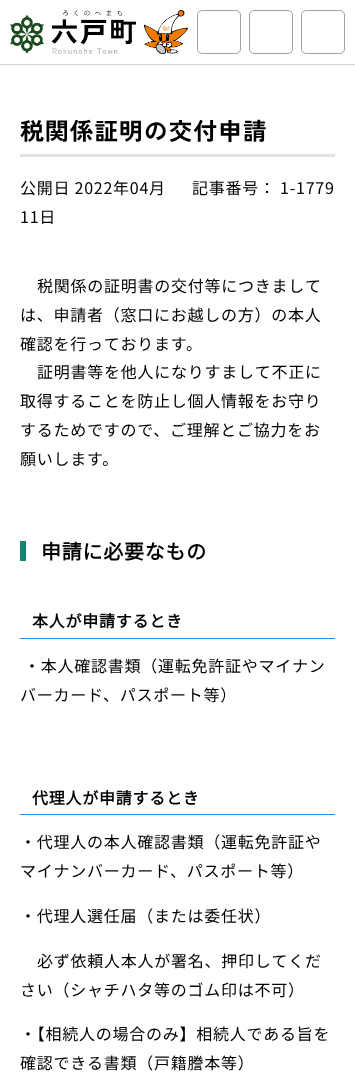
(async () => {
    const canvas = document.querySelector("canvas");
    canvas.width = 355;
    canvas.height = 1076;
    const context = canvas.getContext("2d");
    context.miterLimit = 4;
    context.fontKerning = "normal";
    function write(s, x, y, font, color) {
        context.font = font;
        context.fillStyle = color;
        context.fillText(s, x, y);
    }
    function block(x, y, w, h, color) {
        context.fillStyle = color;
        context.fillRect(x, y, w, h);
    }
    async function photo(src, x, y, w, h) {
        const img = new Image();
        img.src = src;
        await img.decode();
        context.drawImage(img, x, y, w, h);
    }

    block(0, 0, 355, 1076, "rgb(255, 255, 255)");
    await photo("media/1.png", 10, 10, 126, 44);
    await photo("media/2.png", 144, 10, 44, 44);
    context.beginPath();
    context.roundRect(197.5, 10.5, 43, 43, 4.5);
    context.strokeStyle = "rgb(162, 162, 162)";
    context.stroke();
    context.beginPath();
    context.roundRect(249.5, 10.5, 43, 43, 4.5);
    context.stroke();
    context.beginPath();
    context.roundRect(301.5, 10.5, 43, 43, 4.5);
    context.stroke();
    block(0, 64, 355, 1, "rgb(211, 211, 211)");
    block(20, 154, 315, 3, "rgb(226, 226, 226)");
    context.letterSpacing = "0.75px";
    write("税関係証明の交付申請", 20, 140, "bold 24px Zen Kaku Gothic New", "rgb(0, 0, 0)");
    write("公開日 2022年04月", 20, 194, "100 16px Noto Sans JP", "rgb(0, 0, 0)");
    write("11日", 20, 223, "100 16px Noto Sans JP", "rgb(0, 0, 0)");
    write("記事番号： 1-1779", 192, 194, "100 16px Noto Sans JP", "rgb(0, 0, 0)");
    write("税関係の証明書の交付等につきまして", 37, 292, "100 16px Noto Sans JP", "rgb(0, 0, 0)");
    write("は、申請者（窓口にお越しの方）の本人", 20, 321, "100 16px Noto Sans JP", "rgb(0, 0, 0)");
    write("確認を行っております。", 20, 350, "100 16px Noto Sans JP", "rgb(0, 0, 0)");
    write("証明書等を他人になりすまして不正に", 37, 378, "100 16px Noto Sans JP", "rgb(0, 0, 0)");
    write("取得することを防止し個人情報をお守り", 20, 407, "100 16px Noto Sans JP", "rgb(0, 0, 0)");
    write("するためですので、ご理解とご協力をお", 20, 436, "100 16px Noto Sans JP", "rgb(0, 0, 0)");
    write("願いします。", 20, 465, "100 16px Noto Sans JP", "rgb(0, 0, 0)");
    block(20, 541, 6, 20, "rgb(22, 133, 112)");
    write("申請に必要なもの", 41, 559, "bold 20px Noto Sans JP", "rgb(0, 0, 0)");
    block(20, 638, 315, 1, "rgb(30, 136, 229)");
    write("本人が申請するとき", 32, 627, "bold 16px Noto Sans JP", "rgb(0, 0, 0)");
    write("・本人確認書類（運転免許証やマイナン", 24, 672, "100 16px Noto Sans JP", "rgb(0, 0, 0)");
    write("バーカード、パスポート等）", 20, 701, "100 16px Noto Sans JP", "rgb(0, 0, 0)");
    block(20, 814, 315, 1, "rgb(30, 136, 229)");
    write("代理人が申請するとき", 32, 804, "bold 16px Noto Sans JP", "rgb(0, 0, 0)");
    write("・代理人の本人確認書類（運転免許証や", 20, 848, "100 16px Noto Sans JP", "rgb(0, 0, 0)");
    write("マイナンバーカード、パスポート等）", 20, 877, "100 16px Noto Sans JP", "rgb(0, 0, 0)");
    write("・代理人選任届（または委任状）", 20, 922, "100 16px Noto Sans JP", "rgb(0, 0, 0)");
    write("必ず依頼人本人が署名、押印してくだ", 37, 967, "100 16px Noto Sans JP", "rgb(0, 0, 0)");
    write("さい（シャチハタ等のゴム印は不可）", 20, 996, "100 16px Noto Sans JP", "rgb(0, 0, 0)");
    write("・【相続人の場合のみ】相続人である旨を", 20, 1040, "100 16px Noto Sans JP", "rgb(0, 0, 0)");
    write("確認できる書類（戸籍謄本等）", 20, 1069, "100 16px Noto Sans JP", "rgb(0, 0, 0)");
})();
